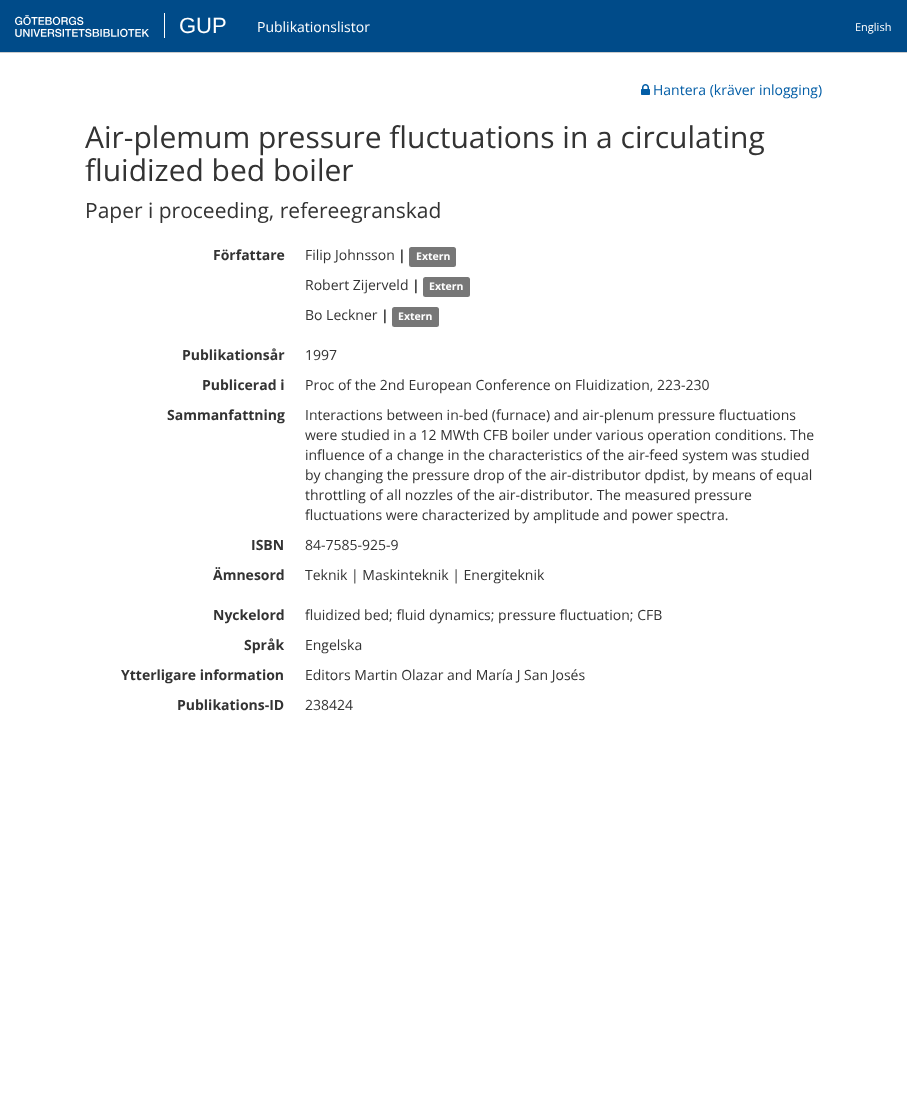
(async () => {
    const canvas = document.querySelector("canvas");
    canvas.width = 907;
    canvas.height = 1110;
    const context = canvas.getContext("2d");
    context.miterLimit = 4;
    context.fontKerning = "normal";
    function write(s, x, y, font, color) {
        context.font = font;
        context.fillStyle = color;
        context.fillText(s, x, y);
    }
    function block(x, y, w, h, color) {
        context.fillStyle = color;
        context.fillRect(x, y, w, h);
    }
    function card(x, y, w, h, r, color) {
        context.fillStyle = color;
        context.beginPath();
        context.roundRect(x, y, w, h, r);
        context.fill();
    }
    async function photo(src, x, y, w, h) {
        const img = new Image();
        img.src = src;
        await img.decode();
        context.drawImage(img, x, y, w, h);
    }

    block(0, 0, 907, 1110, "rgb(255, 255, 255)");
    block(0, 0, 907, 52, "rgb(0, 75, 137)");
    block(0, 52, 907, 1, "rgb(204, 204, 204)");
    await photo("media/1.png", 15, 15, 134, 22);
    block(164, 13, 1, 25, "rgb(255, 255, 255)");
    write("GUP", 179, 33, "22px Liberation Sans", "rgb(255, 255, 255)");
    write("Publikationslistor", 257, 32, "14px Open Sans", "rgb(255, 255, 255)");
    write("English", 855, 31, "11px Open Sans", "rgb(255, 255, 255)");
    await photo("media/2.png", 641, 84, 9, 11);
    write("Hantera (kräver inlogging)", 653, 95, "14px Open Sans", "rgb(2, 93, 166)");
    write("Air-plemum pressure fluctuations in a circulating", 85, 148, "30px Open Sans", "rgb(51, 51, 51)");
    write("fluidized bed boiler", 85, 181, "30px Open Sans", "rgb(51, 51, 51)");
    write("Paper i proceeding, refereegranskad", 85, 218, "21px Open Sans", "rgb(51, 51, 51)");
    write("Författare", 213, 260, "bold 14px Open Sans", "rgb(51, 51, 51)");
    write("Filip Johnsson", 305, 260, "14px Open Sans", "rgb(51, 51, 51)");
    write("|", 398, 260, "bold 14px Open Sans", "rgb(51, 51, 51)");
    card(409, 247, 47, 20, 2.5, "rgb(119, 119, 119)");
    write("Extern", 416, 260, "bold 10.5px Open Sans", "rgb(255, 255, 255)");
    write("Robert Zijerveld", 305, 290, "14px Open Sans", "rgb(51, 51, 51)");
    write("|", 412, 290, "bold 14px Open Sans", "rgb(51, 51, 51)");
    card(423, 277, 47, 20, 2.5, "rgb(119, 119, 119)");
    write("Extern", 429, 290, "bold 10.5px Open Sans", "rgb(255, 255, 255)");
    write("Bo Leckner", 305, 320, "14px Open Sans", "rgb(51, 51, 51)");
    write("|", 381, 320, "bold 14px Open Sans", "rgb(51, 51, 51)");
    card(392, 307, 47, 20, 2.5, "rgb(119, 119, 119)");
    write("Extern", 398, 320, "bold 10.5px Open Sans", "rgb(255, 255, 255)");
    write("Publikationsår", 182, 360, "bold 14px Open Sans", "rgb(51, 51, 51)");
    write("1997", 305, 360, "14px Open Sans", "rgb(51, 51, 51)");
    write("Publicerad i", 202, 390, "bold 14px Open Sans", "rgb(51, 51, 51)");
    write("Proc of the 2nd European Conference on Fluidization, 223-230", 305, 390, "14px Open Sans", "rgb(51, 51, 51)");
    write("Sammanfattning", 167, 420, "bold 14px Open Sans", "rgb(51, 51, 51)");
    write("Interactions between in-bed (furnace) and air-plenum pressure fluctuations", 305, 420, "14px Open Sans", "rgb(51, 51, 51)");
    write("were studied in a 12 MWth CFB boiler under various operation conditions. The", 305, 440, "14px Open Sans", "rgb(51, 51, 51)");
    write("influence of a change in the characteristics of the air-feed system was studied", 305, 460, "14px Open Sans", "rgb(51, 51, 51)");
    write("by changing the pressure drop of the air-distributor dpdist, by means of equal", 305, 480, "14px Open Sans", "rgb(51, 51, 51)");
    write("throttling of all nozzles of the air-distributor. The measured pressure", 305, 500, "14px Open Sans", "rgb(51, 51, 51)");
    write("fluctuations were characterized by amplitude and power spectra.", 305, 520, "14px Open Sans", "rgb(51, 51, 51)");
    write("ISBN", 251, 550, "bold 14px Open Sans", "rgb(51, 51, 51)");
    write("84-7585-925-9", 305, 550, "14px Open Sans", "rgb(51, 51, 51)");
    write("Ämnesord", 213, 580, "bold 14px Open Sans", "rgb(51, 51, 51)");
    write("Teknik | Maskinteknik | Energiteknik", 305, 580, "14px Open Sans", "rgb(51, 51, 51)");
    write("Nyckelord", 213, 620, "bold 14px Open Sans", "rgb(51, 51, 51)");
    write("fluidized bed; fluid dynamics; pressure fluctuation; CFB", 305, 620, "14px Open Sans", "rgb(51, 51, 51)");
    write("Språk", 244, 650, "bold 14px Open Sans", "rgb(51, 51, 51)");
    write("Engelska", 305, 650, "14px Open Sans", "rgb(51, 51, 51)");
    write("Ytterligare information", 121, 680, "bold 14px Open Sans", "rgb(51, 51, 51)");
    write("Editors Martin Olazar and María J San Josés", 305, 680, "14px Open Sans", "rgb(51, 51, 51)");
    write("Publikations-ID", 177, 710, "bold 14px Open Sans", "rgb(51, 51, 51)");
    write("238424", 305, 710, "14px Open Sans", "rgb(51, 51, 51)");
})();
